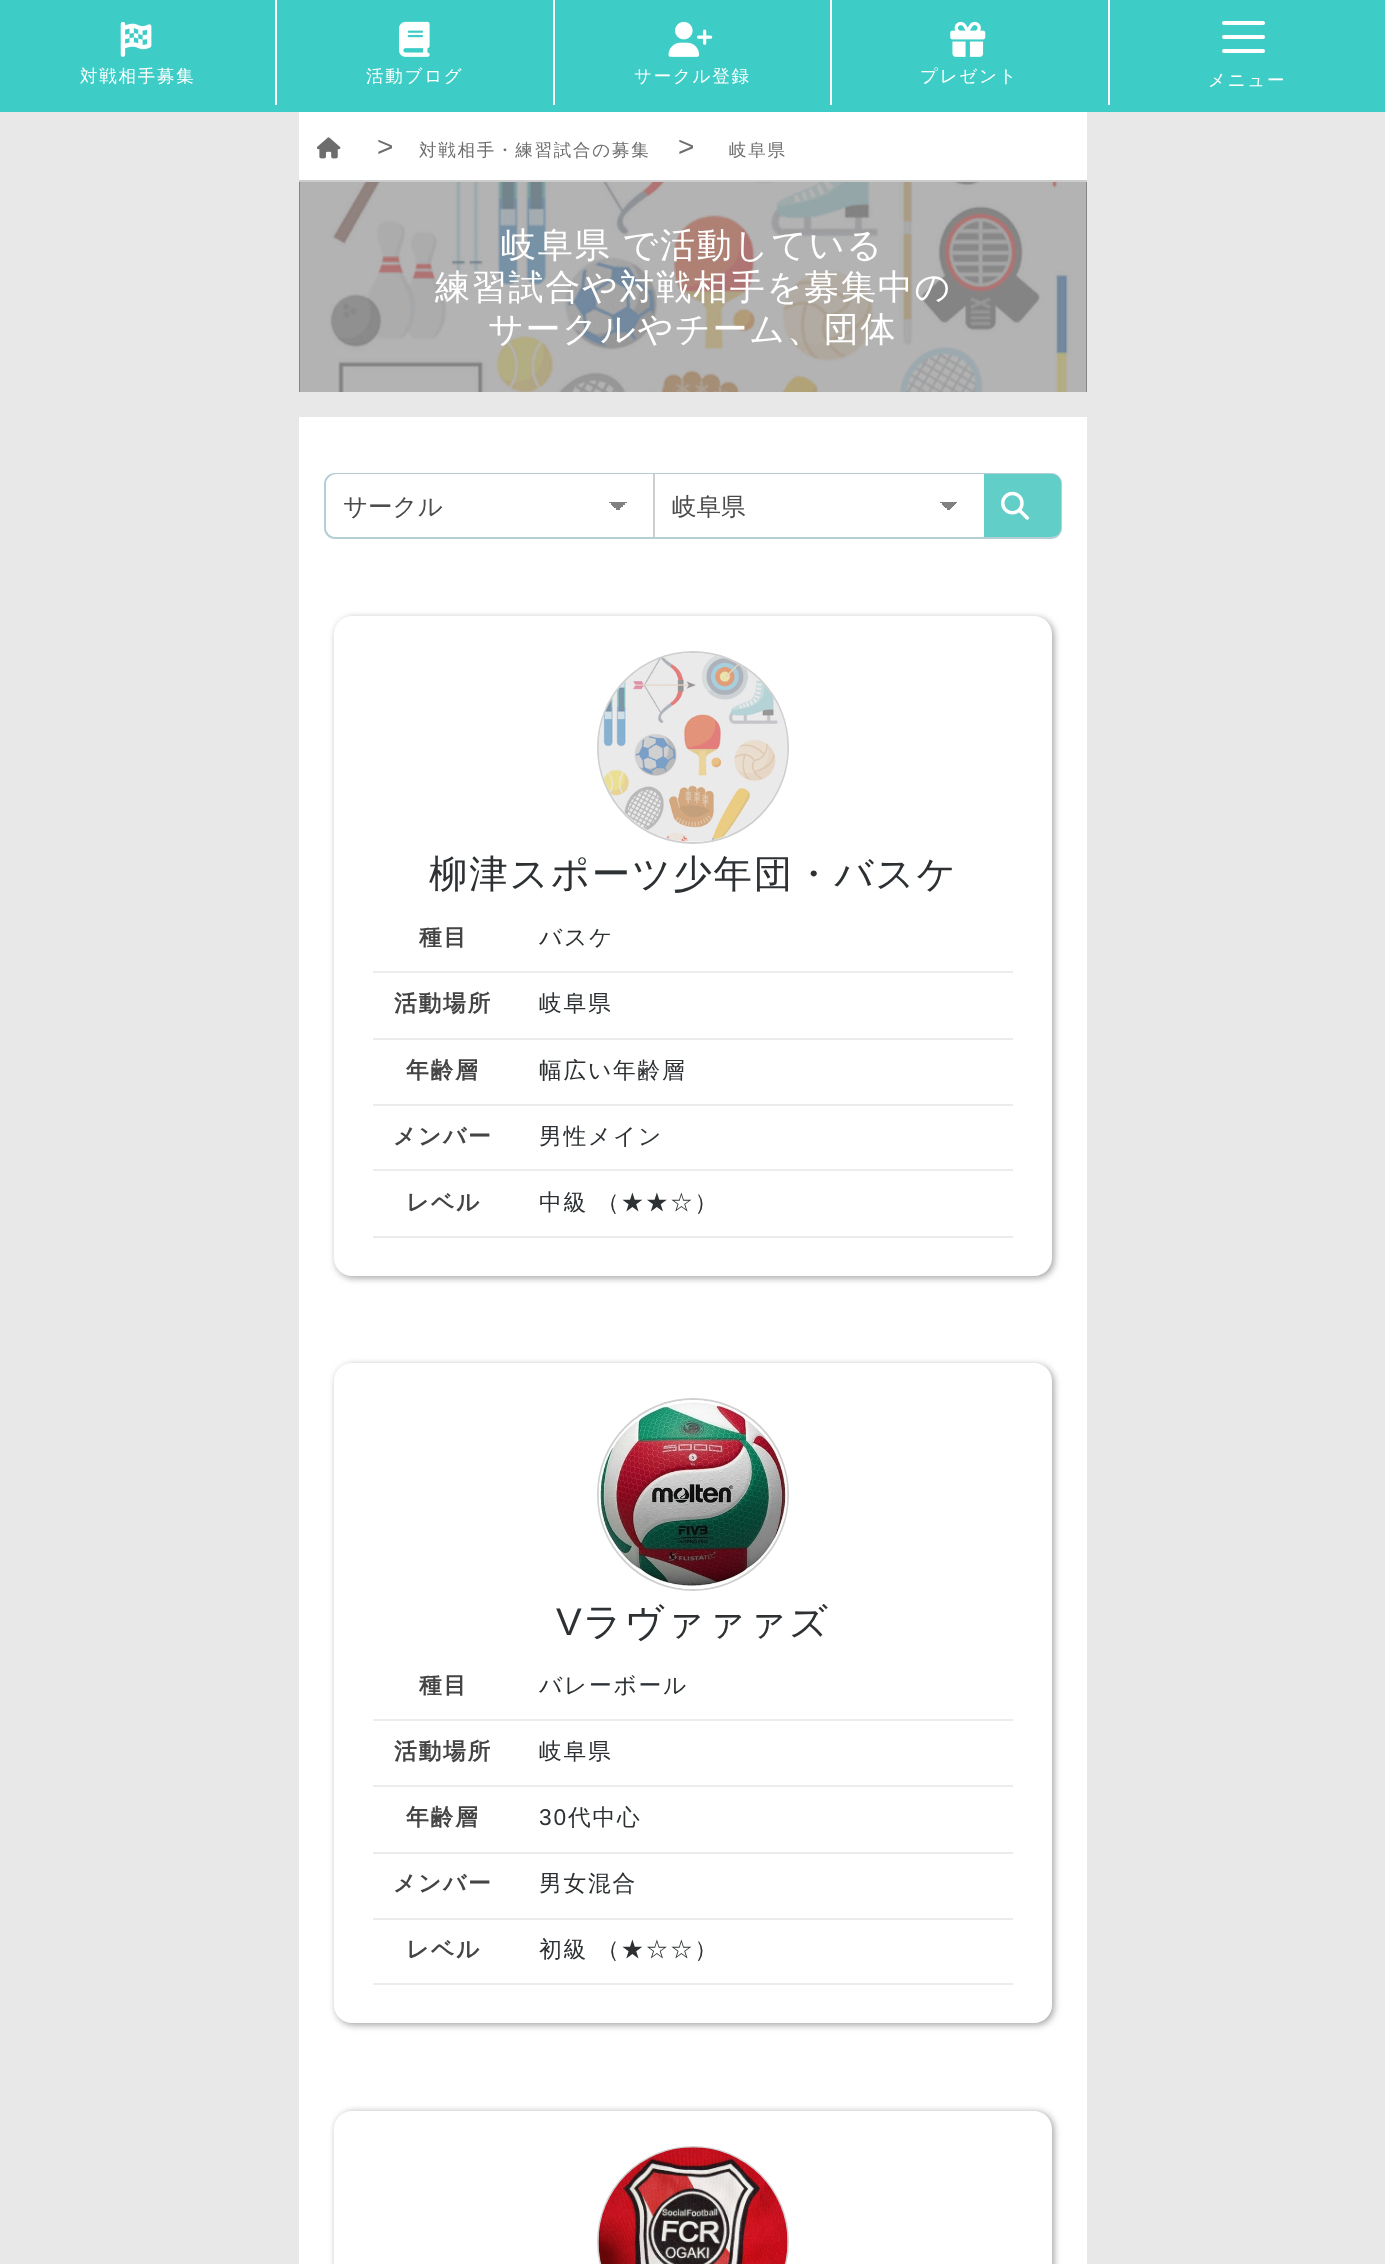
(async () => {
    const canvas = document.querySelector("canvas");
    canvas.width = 1385;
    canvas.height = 2264;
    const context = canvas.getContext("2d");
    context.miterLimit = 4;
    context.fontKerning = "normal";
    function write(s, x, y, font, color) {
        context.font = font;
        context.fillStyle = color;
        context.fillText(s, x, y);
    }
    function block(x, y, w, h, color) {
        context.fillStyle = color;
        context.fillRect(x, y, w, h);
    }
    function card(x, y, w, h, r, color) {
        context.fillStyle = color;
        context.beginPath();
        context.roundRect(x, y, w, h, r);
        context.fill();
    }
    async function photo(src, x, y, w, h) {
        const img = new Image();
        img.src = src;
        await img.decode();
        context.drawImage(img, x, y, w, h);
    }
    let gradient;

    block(0, 0, 1385, 2264, "rgb(232, 232, 232)");
    block(0, 0, 1385, 112, "rgb(62, 205, 198)");
    block(275, 0, 2, 105, "rgb(255, 255, 255)");
    await photo("media/1.png", 120, 21, 32, 36);
    context.letterSpacing = "1.75px";
    write("対戦相手募集", 80, 82, "500 17.5px WenQuanYi Zen Hei", "rgb(255, 255, 255)");
    block(553, 0, 2, 105, "rgb(255, 255, 255)");
    await photo("media/2.png", 399, 21, 31, 36);
    write("活動ブログ", 366, 82, "500 17.5px WenQuanYi Zen Hei", "rgb(255, 255, 255)");
    block(830, 0, 2, 105, "rgb(255, 255, 255)");
    await photo("media/3.png", 668, 21, 45, 36);
    write("サークル登録", 634, 82, "500 17.5px WenQuanYi Zen Hei", "rgb(255, 255, 255)");
    block(1108, 0, 2, 105, "rgb(255, 255, 255)");
    await photo("media/4.png", 950, 21, 36, 36);
    write("プレゼント", 920, 82, "500 17.5px WenQuanYi Zen Hei", "rgb(255, 255, 255)");
    card(1222, 21, 43, 4, 2, "rgb(255, 255, 255)");
    card(1222, 35, 43, 4, 2, "rgb(255, 255, 255)");
    card(1222, 49, 43, 4, 2, "rgb(255, 255, 255)");
    write("メニュー", 1208, 86, "500 17.5px WenQuanYi Zen Hei", "rgb(255, 255, 255)");
    block(299, 112, 788, 68, "rgb(255, 255, 255)");
    block(299, 180, 788, 2, "rgb(204, 204, 204)");
    await photo("media/5.png", 317, 137, 24, 22);
    write(">", 377, 156, "28px Liberation Sans", "rgb(109, 109, 109)");
    write("対戦相手・練習試合の募集", 419, 156, "500 17.5px WenQuanYi Zen Hei", "rgb(109, 109, 109)");
    write(">", 678, 156, "28px Liberation Sans", "rgb(109, 109, 109)");
    write("岐阜県", 729, 156, "500 17.5px WenQuanYi Zen Hei", "rgb(109, 109, 109)");
    block(299, 182, 788, 210, "rgb(0, 0, 0)");
    await photo("media/6.png", 299, 182, 788, 210);
    context.wordSpacing = "-1px";
    write("岐阜県 で活動している", 501, 257, "500 35px WenQuanYi Zen Hei", "rgb(255, 255, 255)");
    context.wordSpacing = "0px";
    write("練習試合や対戦相手を募集中の", 435, 299, "500 35px WenQuanYi Zen Hei", "rgb(255, 255, 255)");
    write("サークルやチーム、団体", 488, 341, "500 35px WenQuanYi Zen Hei", "rgb(255, 255, 255)");
    block(299, 417, 788, 1847, "rgb(255, 255, 255)");
    context.beginPath();
    context.roundRect(325, 474, 736, 64, 10);
    context.strokeStyle = "rgb(180, 206, 214)";
    context.lineWidth = 2;
    context.stroke();
    context.beginPath();
    context.roundRect(326, 474, 329, 63, [11, 0, 0, 11]);
    context.fill();
    gradient = context.createLinearGradient(618, 502, 627, 511);
    gradient.addColorStop(0.5, "rgb(128, 128, 128)");
    gradient.addColorStop(0.5, "rgb(255, 255, 255)");
    context.fillStyle = gradient;
    context.fillRect(618, 502, 9, 8);
    gradient = context.createLinearGradient(609, 511, 618, 502);
    gradient.addColorStop(0.5, "rgb(255, 255, 255)");
    gradient.addColorStop(0.5, "rgb(128, 128, 128)");
    context.fillStyle = gradient;
    context.fillRect(609, 502, 9, 8);
    block(653, 474, 2, 63, "rgb(206, 206, 206)");
    context.letterSpacing = "0px";
    write("サークル", 343, 515, "500 24.5px WenQuanYi Zen Hei", "rgb(74, 74, 74)");
    block(655, 474, 329, 1, "rgb(255, 255, 255)");
    gradient = context.createLinearGradient(949, 502, 957, 511);
    gradient.addColorStop(0.5, "rgb(128, 128, 128)");
    gradient.addColorStop(0.5, "rgb(255, 255, 255)");
    context.fillStyle = gradient;
    context.fillRect(949, 502, 8, 9);
    gradient = context.createLinearGradient(940, 511, 949, 502);
    gradient.addColorStop(0.5, "rgb(255, 255, 255)");
    gradient.addColorStop(0.5, "rgb(128, 128, 128)");
    context.fillStyle = gradient;
    context.fillRect(940, 502, 9, 8);
    write("岐阜県", 672, 515, "500 24.5px WenQuanYi Zen Hei", "rgb(74, 74, 74)");
    context.fillStyle = "rgb(97, 206, 199)";
    context.beginPath();
    context.roundRect(984, 474, 77, 63, [0, 9, 9, 0]);
    context.fill();
    await photo("media/7.png", 1001, 491, 28, 29);
    context.save();
    context.beginPath();
    context.moveTo(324, 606);
    context.lineTo(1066, 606);
    context.lineTo(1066, 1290);
    context.lineTo(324, 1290);
    context.closePath();
    context.moveTo(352, 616);
    context.lineTo(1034, 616);
    context.bezierCurveTo(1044, 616, 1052, 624, 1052, 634);
    context.lineTo(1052, 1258);
    context.bezierCurveTo(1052, 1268, 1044, 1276, 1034, 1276);
    context.lineTo(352, 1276);
    context.bezierCurveTo(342, 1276, 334, 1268, 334, 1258);
    context.lineTo(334, 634);
    context.bezierCurveTo(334, 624, 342, 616, 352, 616);
    context.closePath();
    context.clip("evenodd");
    context.fillStyle = "rgb(162, 162, 162)";
    context.filter = "blur(3.5px)";
    context.beginPath();
    context.roundRect(336, 618, 718, 660, 18);
    context.fill();
    context.filter = "none";
    context.restore();
    context.beginPath();
    context.roundRect(598, 652, 190, 191, 95);
    context.strokeStyle = "rgb(208, 208, 208)";
    context.stroke();
    await photo("media/8.png", 598, 653, 190, 189);
    context.letterSpacing = "1.75px";
    write("柳津スポーツ少年団・バスケ", 429, 887, "500 38.5px WenQuanYi Zen Hei", "rgb(45, 49, 51)");
    block(373, 971, 640, 2, "rgb(236, 236, 236)");
    write("種目", 419, 945, "bold 22.75px WenQuanYi Zen Hei", "rgb(68, 68, 68)");
    write("バスケ", 539, 945, "500 22.75px WenQuanYi Zen Hei", "rgb(45, 49, 51)");
    block(373, 1038, 640, 2, "rgb(236, 236, 236)");
    write("活動場所", 394, 1011, "bold 22.75px WenQuanYi Zen Hei", "rgb(68, 68, 68)");
    write("岐阜県", 539, 1011, "500 22.75px WenQuanYi Zen Hei", "rgb(45, 49, 51)");
    block(373, 1104, 640, 2, "rgb(236, 236, 236)");
    write("年齢層", 406, 1078, "bold 22.75px WenQuanYi Zen Hei", "rgb(68, 68, 68)");
    write("幅広い年齢層", 539, 1078, "500 22.75px WenQuanYi Zen Hei", "rgb(45, 49, 51)");
    block(373, 1169, 640, 2, "rgb(236, 236, 236)");
    write("メンバー", 393, 1144, "bold 22.75px WenQuanYi Zen Hei", "rgb(68, 68, 68)");
    write("男性メイン", 539, 1144, "500 22.75px WenQuanYi Zen Hei", "rgb(45, 49, 51)");
    block(373, 1236, 640, 2, "rgb(236, 236, 236)");
    write("レベル", 406, 1210, "bold 22.75px WenQuanYi Zen Hei", "rgb(68, 68, 68)");
    write("中級 （★★☆）", 539, 1210, "500 22.75px WenQuanYi Zen Hei", "rgb(45, 49, 51)");
    context.save();
    context.beginPath();
    context.moveTo(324, 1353);
    context.lineTo(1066, 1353);
    context.lineTo(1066, 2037);
    context.lineTo(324, 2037);
    context.closePath();
    context.moveTo(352, 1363);
    context.lineTo(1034, 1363);
    context.bezierCurveTo(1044, 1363, 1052, 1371, 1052, 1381);
    context.lineTo(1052, 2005);
    context.bezierCurveTo(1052, 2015, 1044, 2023, 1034, 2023);
    context.lineTo(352, 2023);
    context.bezierCurveTo(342, 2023, 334, 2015, 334, 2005);
    context.lineTo(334, 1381);
    context.bezierCurveTo(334, 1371, 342, 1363, 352, 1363);
    context.closePath();
    context.clip("evenodd");
    context.fillStyle = "rgb(162, 162, 162)";
    context.filter = "blur(3.5px)";
    context.beginPath();
    context.roundRect(336, 1365, 718, 660, 18);
    context.fill();
    context.filter = "none";
    context.restore();
    context.beginPath();
    context.roundRect(598, 1399, 190, 191, 95);
    context.stroke();
    await photo("media/9.png", 598, 1400, 190, 189);
    write("V", 556, 1635, "38.5px Liberation Sans", "rgb(45, 49, 51)");
    write("ラヴァァァズ", 583, 1635, "500 38.5px WenQuanYi Zen Hei", "rgb(45, 49, 51)");
    block(373, 1719, 640, 2, "rgb(236, 236, 236)");
    write("種目", 419, 1693, "bold 22.75px WenQuanYi Zen Hei", "rgb(68, 68, 68)");
    write("バレーボール", 539, 1693, "500 22.75px WenQuanYi Zen Hei", "rgb(45, 49, 51)");
    block(373, 1785, 640, 2, "rgb(236, 236, 236)");
    write("活動場所", 394, 1759, "bold 22.75px WenQuanYi Zen Hei", "rgb(68, 68, 68)");
    write("岐阜県", 539, 1759, "500 22.75px WenQuanYi Zen Hei", "rgb(45, 49, 51)");
    block(373, 1852, 640, 2, "rgb(236, 236, 236)");
    write("年齢層", 406, 1825, "bold 22.75px WenQuanYi Zen Hei", "rgb(68, 68, 68)");
    write("30", 539, 1825, "22.75px Liberation Sans", "rgb(45, 49, 51)");
    write("代中心", 568, 1825, "500 22.75px WenQuanYi Zen Hei", "rgb(45, 49, 51)");
    block(373, 1918, 640, 2, "rgb(236, 236, 236)");
    write("メンバー", 393, 1891, "bold 22.75px WenQuanYi Zen Hei", "rgb(68, 68, 68)");
    write("男女混合", 539, 1891, "500 22.75px WenQuanYi Zen Hei", "rgb(45, 49, 51)");
    block(373, 1983, 640, 2, "rgb(236, 236, 236)");
    write("レベル", 406, 1957, "bold 22.75px WenQuanYi Zen Hei", "rgb(68, 68, 68)");
    write("初級 （★☆☆）", 539, 1957, "500 22.75px WenQuanYi Zen Hei", "rgb(45, 49, 51)");
    context.save();
    context.beginPath();
    context.moveTo(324, 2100);
    context.lineTo(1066, 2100);
    context.lineTo(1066, 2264);
    context.lineTo(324, 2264);
    context.closePath();
    context.moveTo(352, 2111);
    context.lineTo(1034, 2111);
    context.bezierCurveTo(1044, 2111, 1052, 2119, 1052, 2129);
    context.lineTo(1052, 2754);
    context.bezierCurveTo(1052, 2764, 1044, 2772, 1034, 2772);
    context.lineTo(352, 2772);
    context.bezierCurveTo(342, 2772, 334, 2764, 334, 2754);
    context.lineTo(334, 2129);
    context.bezierCurveTo(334, 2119, 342, 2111, 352, 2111);
    context.closePath();
    context.clip("evenodd");
    context.fillStyle = "rgb(162, 162, 162)";
    context.filter = "blur(3.5px)";
    context.beginPath();
    context.roundRect(336, 2112, 718, 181, 18);
    context.fill();
    context.filter = "none";
    context.restore();
    context.beginPath();
    context.arc(693, 2242, 95, 0, Math.PI * 2);
    context.stroke();
    await photo("media/10.png", 598, 2147, 190, 117);
})();
